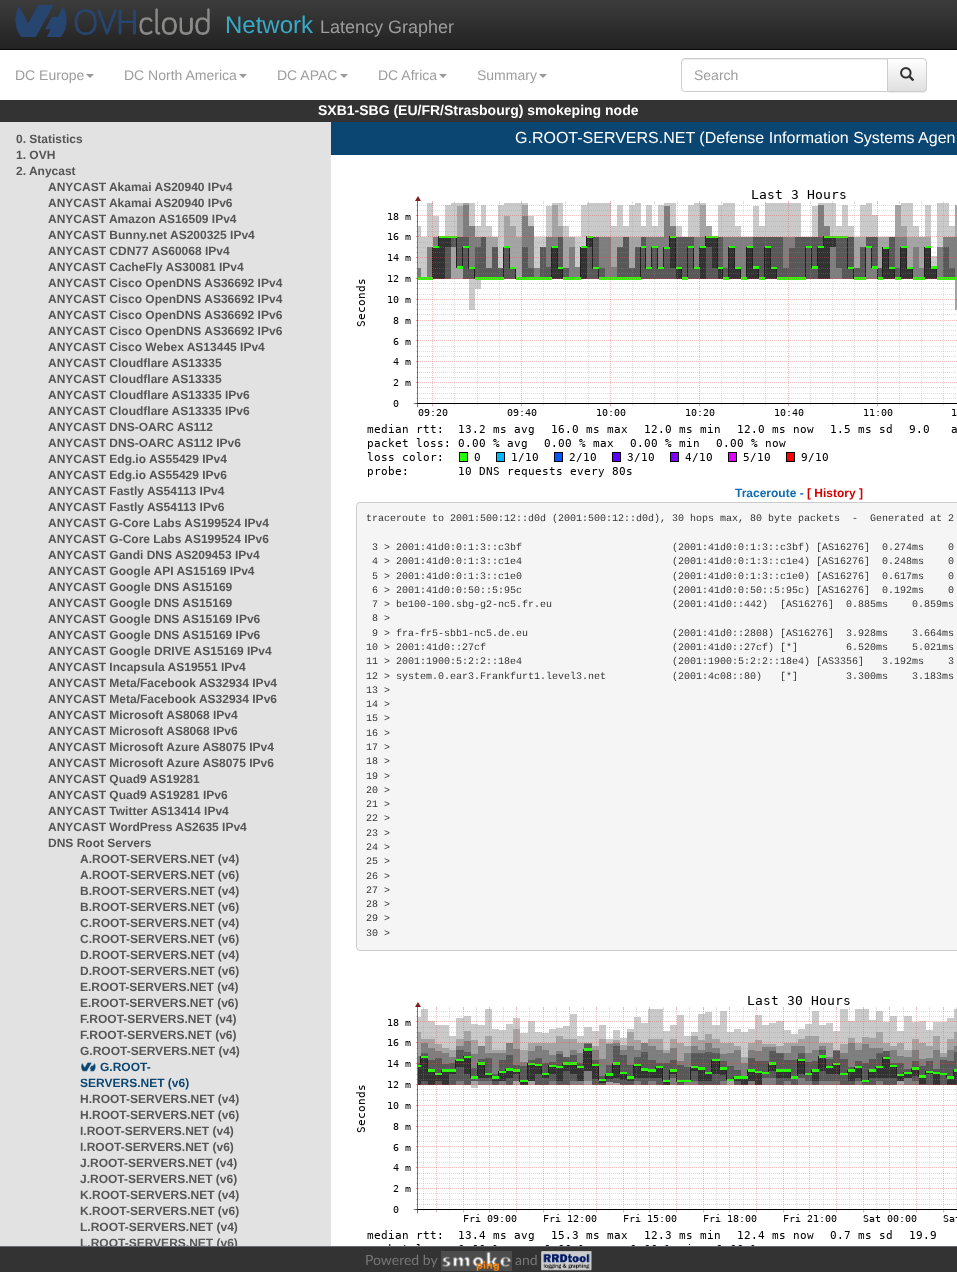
(async () => {
    const canvas = document.querySelector("canvas");
    canvas.width = 957;
    canvas.height = 1272;
    const context = canvas.getContext("2d");
    context.miterLimit = 4;
    context.fontKerning = "normal";
    function write(s, x, y, font, color) {
        context.font = font;
        context.fillStyle = color;
        context.fillText(s, x, y);
    }
    function block(x, y, w, h, color) {
        context.fillStyle = color;
        context.fillRect(x, y, w, h);
    }
    async function photo(src, x, y, w, h) {
        const img = new Image();
        img.src = src;
        await img.decode();
        context.drawImage(img, x, y, w, h);
    }
    let gradient;

    block(0, 0, 957, 1272, "rgb(255, 255, 255)");
    gradient = context.createLinearGradient(479, 0, 479, 49);
    gradient.addColorStop(0, "rgb(60, 60, 60)");
    gradient.addColorStop(1, "rgb(34, 34, 34)");
    context.fillStyle = gradient;
    context.fillRect(0, 0, 957, 49);
    block(0, 49, 957, 1, "rgb(8, 8, 8)");
    await photo("media/1.png", 15, 5, 195, 32);
    write("Network", 225, 33, "24px Liberation Sans", "rgb(55, 171, 200)");
    write("Latency Grapher", 320, 33, "18px Liberation Sans", "rgb(157, 157, 157)");
    write("DC Europe", 15, 80, "14px Liberation Sans", "rgb(157, 157, 157)");
    context.fillStyle = "rgb(153, 153, 153)";
    context.beginPath();
    context.moveTo(86, 74);
    context.lineTo(94, 74);
    context.lineTo(90, 78);
    context.closePath();
    context.fill();
    write("DC North America", 124, 80, "14px Liberation Sans", "rgb(157, 157, 157)");
    context.fillStyle = "rgb(153, 153, 153)";
    context.beginPath();
    context.moveTo(239, 74);
    context.lineTo(247, 74);
    context.lineTo(243, 78);
    context.closePath();
    context.fill();
    write("DC APAC", 277, 80, "14px Liberation Sans", "rgb(157, 157, 157)");
    context.fillStyle = "rgb(153, 153, 153)";
    context.beginPath();
    context.moveTo(340, 74);
    context.lineTo(348, 74);
    context.lineTo(344, 78);
    context.closePath();
    context.fill();
    write("DC Africa", 378, 80, "14px Liberation Sans", "rgb(157, 157, 157)");
    context.fillStyle = "rgb(153, 153, 153)";
    context.beginPath();
    context.moveTo(439, 74);
    context.lineTo(447, 74);
    context.lineTo(443, 78);
    context.closePath();
    context.fill();
    write("Summary", 477, 80, "14px Liberation Sans", "rgb(157, 157, 157)");
    context.fillStyle = "rgb(153, 153, 153)";
    context.beginPath();
    context.moveTo(539, 74);
    context.lineTo(547, 74);
    context.lineTo(543, 78);
    context.closePath();
    context.fill();
    context.fillStyle = "rgba(0, 0, 0, 0.07)";
    context.filter = "blur(0.5px)";
    context.beginPath();
    context.roundRect(887, 59, 40, 34, 4);
    context.fill();
    context.filter = "none";
    context.save();
    context.beginPath();
    context.roundRect(887, 58, 40, 34, [0, 4, 4, 0]);
    context.clip();
    gradient = context.createLinearGradient(907, 59, 907, 91);
    gradient.addColorStop(0, "rgb(255, 255, 255)");
    gradient.addColorStop(1, "rgb(224, 224, 224)");
    context.fillStyle = gradient;
    context.fillRect(888, 59, 39, 32);
    context.restore();
    context.beginPath();
    context.roundRect(887.5, 58.5, 39, 33, [0, 3.5, 3.5, 0]);
    context.strokeStyle = "rgb(204, 204, 204)";
    context.stroke();
    context.fillStyle = "rgb(255, 255, 255)";
    context.beginPath();
    context.roundRect(681, 58, 207, 34, [4, 0, 0, 4]);
    context.fill();
    context.fillStyle = "rgb(236, 236, 236)";
    context.beginPath();
    context.moveTo(685, 60);
    context.lineTo(887, 60);
    context.lineTo(887, 59);
    context.lineTo(684, 59);
    context.bezierCurveTo(682, 60, 682, 61, 682, 63);
    context.bezierCurveTo(682, 61, 683, 60, 685, 60);
    context.closePath();
    context.fill();
    context.beginPath();
    context.roundRect(681.5, 58.5, 206, 33, [3.5, 0, 0, 3.5]);
    context.stroke();
    write("Search", 694, 80, "14px Liberation Sans", "rgb(157, 157, 157)");
    await photo("media/2.png", 900, 67, 15, 14);
    block(0, 100, 957, 22, "rgb(51, 51, 51)");
    write("SXB1-SBG (EU/FR/Strasbourg) smokeping node", 318, 115, "bold 14px Liberation Sans", "rgb(255, 255, 255)");
    block(0, 122, 331, 1124, "rgb(226, 226, 226)");
    write("0. Statistics", 16, 143, "bold 12px Liberation Sans", "rgb(86, 86, 86)");
    write("1. OVH", 16, 159, "bold 12px Liberation Sans", "rgb(86, 86, 86)");
    write("2. Anycast", 16, 175, "bold 12px Liberation Sans", "rgb(86, 86, 86)");
    write("ANYCAST Akamai AS20940 IPv4", 48, 191, "bold 12px Liberation Sans", "rgb(86, 86, 86)");
    write("ANYCAST Akamai AS20940 IPv6", 48, 207, "bold 12px Liberation Sans", "rgb(86, 86, 86)");
    write("ANYCAST Amazon AS16509 IPv4", 48, 223, "bold 12px Liberation Sans", "rgb(86, 86, 86)");
    write("ANYCAST Bunny.net AS200325 IPv4", 48, 239, "bold 12px Liberation Sans", "rgb(86, 86, 86)");
    write("ANYCAST CDN77 AS60068 IPv4", 48, 255, "bold 12px Liberation Sans", "rgb(86, 86, 86)");
    write("ANYCAST CacheFly AS30081 IPv4", 48, 271, "bold 12px Liberation Sans", "rgb(86, 86, 86)");
    write("ANYCAST Cisco OpenDNS AS36692 IPv4", 48, 287, "bold 12px Liberation Sans", "rgb(86, 86, 86)");
    write("ANYCAST Cisco OpenDNS AS36692 IPv4", 48, 303, "bold 12px Liberation Sans", "rgb(86, 86, 86)");
    write("ANYCAST Cisco OpenDNS AS36692 IPv6", 48, 319, "bold 12px Liberation Sans", "rgb(86, 86, 86)");
    write("ANYCAST Cisco OpenDNS AS36692 IPv6", 48, 335, "bold 12px Liberation Sans", "rgb(86, 86, 86)");
    write("ANYCAST Cisco Webex AS13445 IPv4", 48, 351, "bold 12px Liberation Sans", "rgb(86, 86, 86)");
    write("ANYCAST Cloudflare AS13335", 48, 367, "bold 12px Liberation Sans", "rgb(86, 86, 86)");
    write("ANYCAST Cloudflare AS13335", 48, 383, "bold 12px Liberation Sans", "rgb(86, 86, 86)");
    write("ANYCAST Cloudflare AS13335 IPv6", 48, 399, "bold 12px Liberation Sans", "rgb(86, 86, 86)");
    write("ANYCAST Cloudflare AS13335 IPv6", 48, 415, "bold 12px Liberation Sans", "rgb(86, 86, 86)");
    write("ANYCAST DNS-OARC AS112", 48, 431, "bold 12px Liberation Sans", "rgb(86, 86, 86)");
    write("ANYCAST DNS-OARC AS112 IPv6", 48, 447, "bold 12px Liberation Sans", "rgb(86, 86, 86)");
    write("ANYCAST Edg.io AS55429 IPv4", 48, 463, "bold 12px Liberation Sans", "rgb(86, 86, 86)");
    write("ANYCAST Edg.io AS55429 IPv6", 48, 479, "bold 12px Liberation Sans", "rgb(86, 86, 86)");
    write("ANYCAST Fastly AS54113 IPv4", 48, 495, "bold 12px Liberation Sans", "rgb(86, 86, 86)");
    write("ANYCAST Fastly AS54113 IPv6", 48, 511, "bold 12px Liberation Sans", "rgb(86, 86, 86)");
    write("ANYCAST G-Core Labs AS199524 IPv4", 48, 527, "bold 12px Liberation Sans", "rgb(86, 86, 86)");
    write("ANYCAST G-Core Labs AS199524 IPv6", 48, 543, "bold 12px Liberation Sans", "rgb(86, 86, 86)");
    write("ANYCAST Gandi DNS AS209453 IPv4", 48, 559, "bold 12px Liberation Sans", "rgb(86, 86, 86)");
    write("ANYCAST Google API AS15169 IPv4", 48, 575, "bold 12px Liberation Sans", "rgb(86, 86, 86)");
    write("ANYCAST Google DNS AS15169", 48, 591, "bold 12px Liberation Sans", "rgb(86, 86, 86)");
    write("ANYCAST Google DNS AS15169", 48, 607, "bold 12px Liberation Sans", "rgb(86, 86, 86)");
    write("ANYCAST Google DNS AS15169 IPv6", 48, 623, "bold 12px Liberation Sans", "rgb(86, 86, 86)");
    write("ANYCAST Google DNS AS15169 IPv6", 48, 639, "bold 12px Liberation Sans", "rgb(86, 86, 86)");
    write("ANYCAST Google DRIVE AS15169 IPv4", 48, 655, "bold 12px Liberation Sans", "rgb(86, 86, 86)");
    write("ANYCAST Incapsula AS19551 IPv4", 48, 671, "bold 12px Liberation Sans", "rgb(86, 86, 86)");
    write("ANYCAST Meta/Facebook AS32934 IPv4", 48, 687, "bold 12px Liberation Sans", "rgb(86, 86, 86)");
    write("ANYCAST Meta/Facebook AS32934 IPv6", 48, 703, "bold 12px Liberation Sans", "rgb(86, 86, 86)");
    write("ANYCAST Microsoft AS8068 IPv4", 48, 719, "bold 12px Liberation Sans", "rgb(86, 86, 86)");
    write("ANYCAST Microsoft AS8068 IPv6", 48, 735, "bold 12px Liberation Sans", "rgb(86, 86, 86)");
    write("ANYCAST Microsoft Azure AS8075 IPv4", 48, 751, "bold 12px Liberation Sans", "rgb(86, 86, 86)");
    write("ANYCAST Microsoft Azure AS8075 IPv6", 48, 767, "bold 12px Liberation Sans", "rgb(86, 86, 86)");
    write("ANYCAST Quad9 AS19281", 48, 783, "bold 12px Liberation Sans", "rgb(86, 86, 86)");
    write("ANYCAST Quad9 AS19281 IPv6", 48, 799, "bold 12px Liberation Sans", "rgb(86, 86, 86)");
    write("ANYCAST Twitter AS13414 IPv4", 48, 815, "bold 12px Liberation Sans", "rgb(86, 86, 86)");
    write("ANYCAST WordPress AS2635 IPv4", 48, 831, "bold 12px Liberation Sans", "rgb(86, 86, 86)");
    write("DNS Root Servers", 48, 847, "bold 12px Liberation Sans", "rgb(86, 86, 86)");
    write("A.ROOT-SERVERS.NET (v4)", 80, 863, "bold 12px Liberation Sans", "rgb(86, 86, 86)");
    write("A.ROOT-SERVERS.NET (v6)", 80, 879, "bold 12px Liberation Sans", "rgb(86, 86, 86)");
    write("B.ROOT-SERVERS.NET (v4)", 80, 895, "bold 12px Liberation Sans", "rgb(86, 86, 86)");
    write("B.ROOT-SERVERS.NET (v6)", 80, 911, "bold 12px Liberation Sans", "rgb(86, 86, 86)");
    write("C.ROOT-SERVERS.NET (v4)", 80, 927, "bold 12px Liberation Sans", "rgb(86, 86, 86)");
    write("C.ROOT-SERVERS.NET (v6)", 80, 943, "bold 12px Liberation Sans", "rgb(86, 86, 86)");
    write("D.ROOT-SERVERS.NET (v4)", 80, 959, "bold 12px Liberation Sans", "rgb(86, 86, 86)");
    write("D.ROOT-SERVERS.NET (v6)", 80, 975, "bold 12px Liberation Sans", "rgb(86, 86, 86)");
    write("E.ROOT-SERVERS.NET (v4)", 80, 991, "bold 12px Liberation Sans", "rgb(86, 86, 86)");
    write("E.ROOT-SERVERS.NET (v6)", 80, 1007, "bold 12px Liberation Sans", "rgb(86, 86, 86)");
    write("F.ROOT-SERVERS.NET (v4)", 80, 1023, "bold 12px Liberation Sans", "rgb(86, 86, 86)");
    write("F.ROOT-SERVERS.NET (v6)", 80, 1039, "bold 12px Liberation Sans", "rgb(86, 86, 86)");
    write("G.ROOT-SERVERS.NET (v4)", 80, 1055, "bold 12px Liberation Sans", "rgb(86, 86, 86)");
    await photo("media/3.png", 81, 1062, 15, 10);
    write("G.ROOT-", 100, 1071, "bold 12px Liberation Sans", "rgb(11, 70, 114)");
    write("SERVERS.NET (v6)", 80, 1087, "bold 12px Liberation Sans", "rgb(11, 70, 114)");
    write("H.ROOT-SERVERS.NET (v4)", 80, 1103, "bold 12px Liberation Sans", "rgb(86, 86, 86)");
    write("H.ROOT-SERVERS.NET (v6)", 80, 1119, "bold 12px Liberation Sans", "rgb(86, 86, 86)");
    write("I.ROOT-SERVERS.NET (v4)", 80, 1135, "bold 12px Liberation Sans", "rgb(86, 86, 86)");
    write("I.ROOT-SERVERS.NET (v6)", 80, 1151, "bold 12px Liberation Sans", "rgb(86, 86, 86)");
    write("J.ROOT-SERVERS.NET (v4)", 80, 1167, "bold 12px Liberation Sans", "rgb(86, 86, 86)");
    write("J.ROOT-SERVERS.NET (v6)", 80, 1183, "bold 12px Liberation Sans", "rgb(86, 86, 86)");
    write("K.ROOT-SERVERS.NET (v4)", 80, 1199, "bold 12px Liberation Sans", "rgb(86, 86, 86)");
    write("K.ROOT-SERVERS.NET (v6)", 80, 1215, "bold 12px Liberation Sans", "rgb(86, 86, 86)");
    write("L.ROOT-SERVERS.NET (v4)", 80, 1231, "bold 12px Liberation Sans", "rgb(86, 86, 86)");
    write("L.ROOT-SERVERS.NET (v6)", 80, 1247, "bold 12px Liberation Sans", "rgb(86, 86, 86)");
    block(331, 122, 626, 33, "rgb(11, 70, 114)");
    write("G.ROOT-SERVERS.NET (Defense Information Systems Agen", 515, 143, "16px Liberation Sans", "rgb(255, 255, 255)");
    await photo("media/4.png", 356, 190, 601, 287);
    write("Traceroute -", 735, 497, "bold 12px Liberation Sans", "rgb(16, 108, 182)");
    write("[ History ]", 807, 497, "bold 12px Liberation Sans", "rgb(212, 0, 0)");
    context.fillStyle = "rgb(245, 245, 245)";
    context.beginPath();
    context.roundRect(356.5, 502.5, 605, 448, 3.5);
    context.fill();
    context.stroke();
    write("traceroute to 2001:500:12::d0d (2001:500:12::d0d), 30 hops max, 80 byte packets  -  Generated at 2", 366, 521, "10px Liberation Mono", "rgb(51, 51, 51)");
    write("3 > 2001:41d0:0:1:3::c3bf                         (2001:41d0:0:1:3::c3bf) [AS16276]  0.274ms    0", 372, 550, "10px Liberation Mono", "rgb(51, 51, 51)");
    write("4 > 2001:41d0:0:1:3::c1e4                         (2001:41d0:0:1:3::c1e4) [AS16276]  0.248ms    0", 372, 564, "10px Liberation Mono", "rgb(51, 51, 51)");
    write("5 > 2001:41d0:0:1:3::c1e0                         (2001:41d0:0:1:3::c1e0) [AS16276]  0.617ms    0", 372, 579, "10px Liberation Mono", "rgb(51, 51, 51)");
    write("6 > 2001:41d0:0:50::5:95c                         (2001:41d0:0:50::5:95c) [AS16276]  0.192ms    0", 372, 593, "10px Liberation Mono", "rgb(51, 51, 51)");
    write("7 > be100-100.sbg-g2-nc5.fr.eu                    (2001:41d0::442)  [AS16276]  0.885ms    0.859ms", 372, 607, "10px Liberation Mono", "rgb(51, 51, 51)");
    write("8 >", 372, 621, "10px Liberation Mono", "rgb(51, 51, 51)");
    write("9 > fra-fr5-sbb1-nc5.de.eu                        (2001:41d0::2808) [AS16276]  3.928ms    3.664ms", 372, 636, "10px Liberation Mono", "rgb(51, 51, 51)");
    write("10 > 2001:41d0::27cf                               (2001:41d0::27cf) [*]        6.520ms    5.021ms", 366, 650, "10px Liberation Mono", "rgb(51, 51, 51)");
    write("11 > 2001:1900:5:2:2::18e4                         (2001:1900:5:2:2::18e4) [AS3356]   3.192ms    3", 366, 664, "10px Liberation Mono", "rgb(51, 51, 51)");
    write("12 > system.0.ear3.Frankfurt1.level3.net           (2001:4c08::80)   [*]        3.300ms    3.183ms", 366, 679, "10px Liberation Mono", "rgb(51, 51, 51)");
    write("13 >", 366, 693, "10px Liberation Mono", "rgb(51, 51, 51)");
    write("14 >", 366, 707, "10px Liberation Mono", "rgb(51, 51, 51)");
    write("15 >", 366, 721, "10px Liberation Mono", "rgb(51, 51, 51)");
    write("16 >", 366, 736, "10px Liberation Mono", "rgb(51, 51, 51)");
    write("17 >", 366, 750, "10px Liberation Mono", "rgb(51, 51, 51)");
    write("18 >", 366, 764, "10px Liberation Mono", "rgb(51, 51, 51)");
    write("19 >", 366, 779, "10px Liberation Mono", "rgb(51, 51, 51)");
    write("20 >", 366, 793, "10px Liberation Mono", "rgb(51, 51, 51)");
    write("21 >", 366, 807, "10px Liberation Mono", "rgb(51, 51, 51)");
    write("22 >", 366, 821, "10px Liberation Mono", "rgb(51, 51, 51)");
    write("23 >", 366, 836, "10px Liberation Mono", "rgb(51, 51, 51)");
    write("24 >", 366, 850, "10px Liberation Mono", "rgb(51, 51, 51)");
    write("25 >", 366, 864, "10px Liberation Mono", "rgb(51, 51, 51)");
    write("26 >", 366, 879, "10px Liberation Mono", "rgb(51, 51, 51)");
    write("27 >", 366, 893, "10px Liberation Mono", "rgb(51, 51, 51)");
    write("28 >", 366, 907, "10px Liberation Mono", "rgb(51, 51, 51)");
    write("29 >", 366, 921, "10px Liberation Mono", "rgb(51, 51, 51)");
    write("30 >", 366, 936, "10px Liberation Mono", "rgb(51, 51, 51)");
    await photo("media/5.png", 356, 996, 601, 250);
    block(0, 1247, 957, 25, "rgb(51, 51, 51)");
    block(0, 1246, 957, 1, "rgb(102, 106, 115)");
    write("Powered by", 365, 1265, "14px Lato", "rgb(119, 119, 119)");
    await photo("media/6.png", 441, 1251, 71, 20);
    write("and", 515, 1265, "14px Lato", "rgb(119, 119, 119)");
    await photo("media/7.png", 541, 1251, 51, 20);
})();
